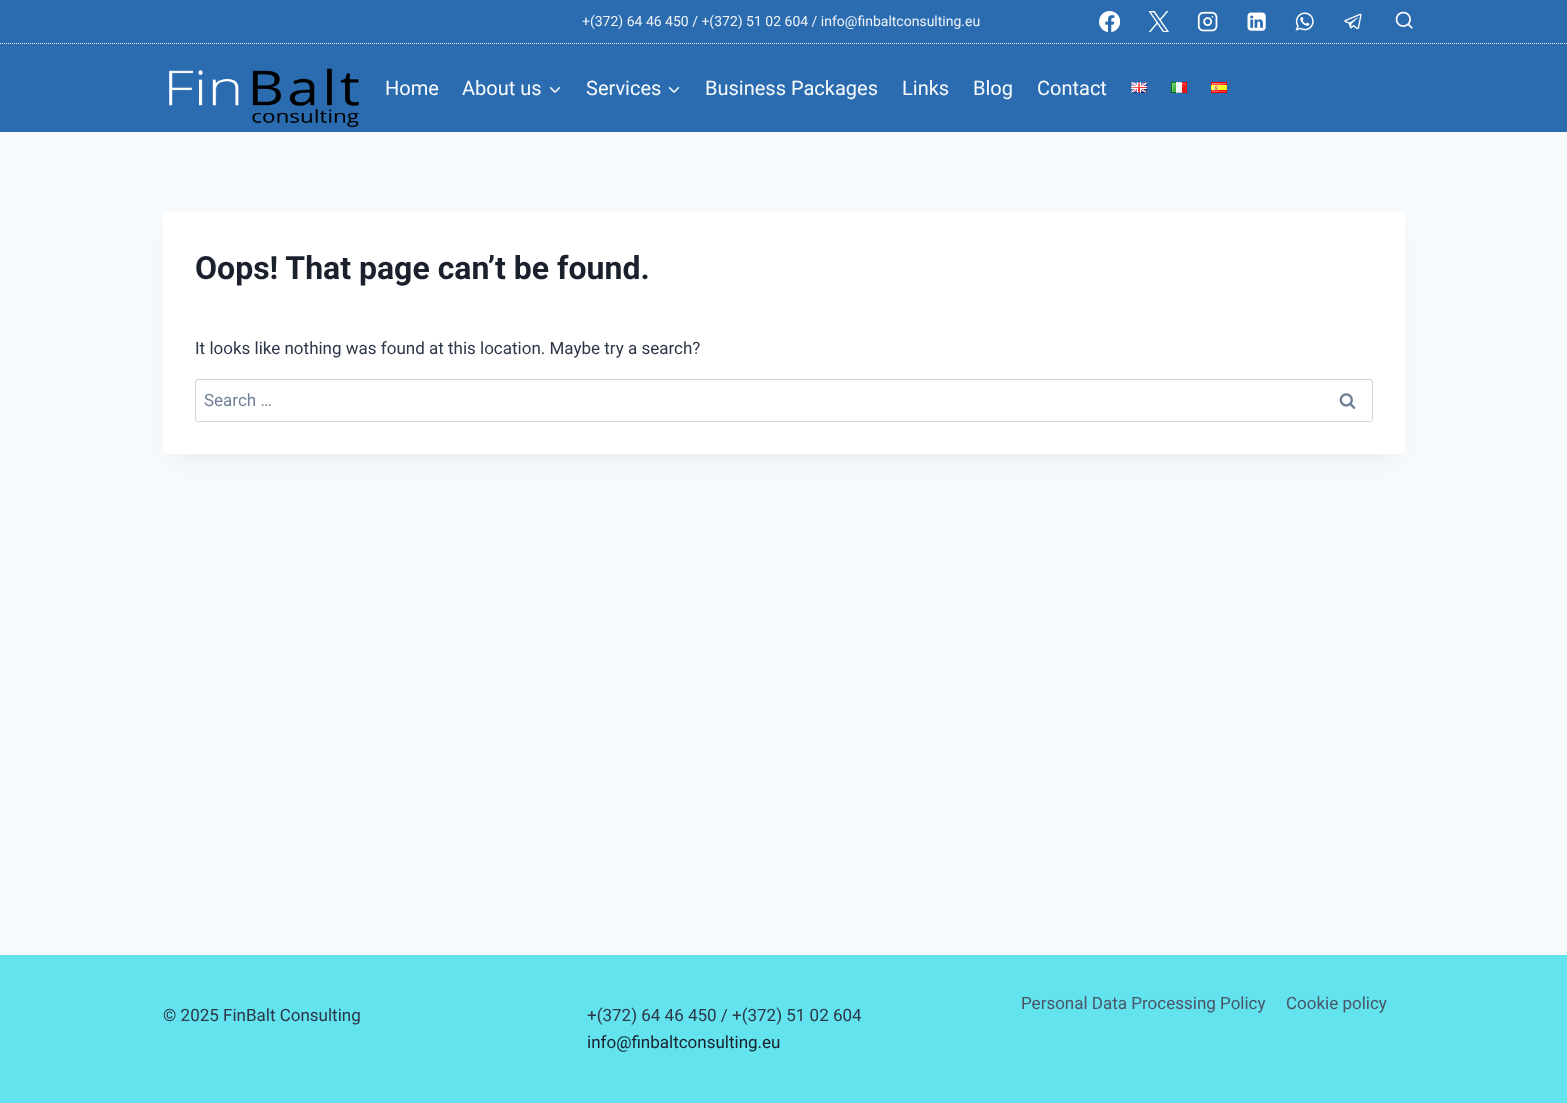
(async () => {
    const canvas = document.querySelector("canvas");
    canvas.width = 1567;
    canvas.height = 1103;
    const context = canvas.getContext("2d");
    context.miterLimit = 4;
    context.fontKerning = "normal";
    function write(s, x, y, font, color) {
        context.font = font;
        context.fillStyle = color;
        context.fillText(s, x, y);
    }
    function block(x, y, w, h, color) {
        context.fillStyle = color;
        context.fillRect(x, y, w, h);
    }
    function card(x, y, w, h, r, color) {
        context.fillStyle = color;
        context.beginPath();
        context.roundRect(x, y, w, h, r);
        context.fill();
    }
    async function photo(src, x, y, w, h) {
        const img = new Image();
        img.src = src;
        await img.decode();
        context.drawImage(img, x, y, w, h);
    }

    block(0, 0, 1567, 1103, "rgb(247, 250, 252)");
    block(0, 0, 1567, 132, "rgb(43, 108, 176)");
    context.beginPath();
    context.moveTo(0, 43.5);
    context.lineTo(1567, 43.5);
    context.strokeStyle = "rgb(237, 242, 247)";
    context.setLineDash([1, 1]);
    context.stroke();
    write("+(372) 64 46 450 / +(372) 51 02 604 / info@finbaltconsulting.eu", 582, 26, "14px Roboto", "rgb(237, 242, 247)");
    await photo("media/1.png", 1099, 11, 21, 21);
    await photo("media/2.png", 1148, 11, 21, 21);
    await photo("media/3.png", 1197, 11, 21, 21);
    await photo("media/4.png", 1247, 12, 19, 19);
    await photo("media/5.png", 1295, 12, 19, 19);
    await photo("media/6.png", 1344, 13, 18, 17);
    await photo("media/7.png", 1395, 11, 18, 18);
    await photo("media/8.png", 169, 68, 190, 60);
    write("Home", 385, 95, "20px Roboto", "rgb(247, 250, 252)");
    write("About us", 462, 95, "20px Roboto", "rgb(247, 250, 252)");
    await photo("media/9.png", 549, 87, 12, 6);
    write("Services", 586, 95, "20px Roboto", "rgb(247, 250, 252)");
    await photo("media/9.png", 668, 87, 12, 6);
    write("Business Packages", 705, 95, "20px Roboto", "rgb(247, 250, 252)");
    write("Links", 902, 95, "20px Roboto", "rgb(247, 250, 252)");
    write("Blog", 973, 95, "20px Roboto", "rgb(247, 250, 252)");
    write("Contact", 1037, 95, "20px Roboto", "rgb(247, 250, 252)");
    await photo("media/10.png", 1131, 82, 16, 11);
    await photo("media/11.png", 1171, 82, 16, 11);
    await photo("media/12.png", 1211, 82, 16, 11);
    context.fillStyle = "rgba(0, 0, 0, 0.05)";
    context.filter = "blur(12.5px)";
    context.beginPath();
    context.rect(173, 237, 1222, 222);
    context.fill();
    context.filter = "none";
    card(163, 212, 1242, 242, 4, "rgb(255, 255, 255)");
    write("Oops! That page can’t be found.", 195, 279, "bold 32px Roboto", "rgb(26, 32, 44)");
    write("It looks like nothing was found at this location. Maybe try a search?", 195, 354, "17px Roboto", "rgb(45, 55, 72)");
    context.beginPath();
    context.roundRect(195.5, 379.5, 1177, 42, 2.5);
    context.strokeStyle = "rgb(203, 213, 224)";
    context.setLineDash([]);
    context.stroke();
    write("Search …", 204, 406, "17px Roboto", "rgb(113, 128, 150)");
    await photo("media/13.png", 1339, 393, 17, 16);
    block(0, 955, 1567, 148, "rgb(99, 227, 238)");
    write("Personal Data Processing Policy", 1021, 1009, "17px Roboto", "rgb(74, 85, 104)");
    write("Cookie policy", 1286, 1009, "17px Roboto", "rgb(74, 85, 104)");
    write("© 2025 FinBalt Consulting", 163, 1021, "17px Roboto", "rgb(45, 55, 72)");
    write("+(372) 64 46 450 / +(372) 51 02 604", 587, 1021, "17px Roboto", "rgb(45, 55, 72)");
    write("info@finbaltconsulting.eu", 587, 1048, "17px Roboto", "rgb(26, 32, 44)");
})();
